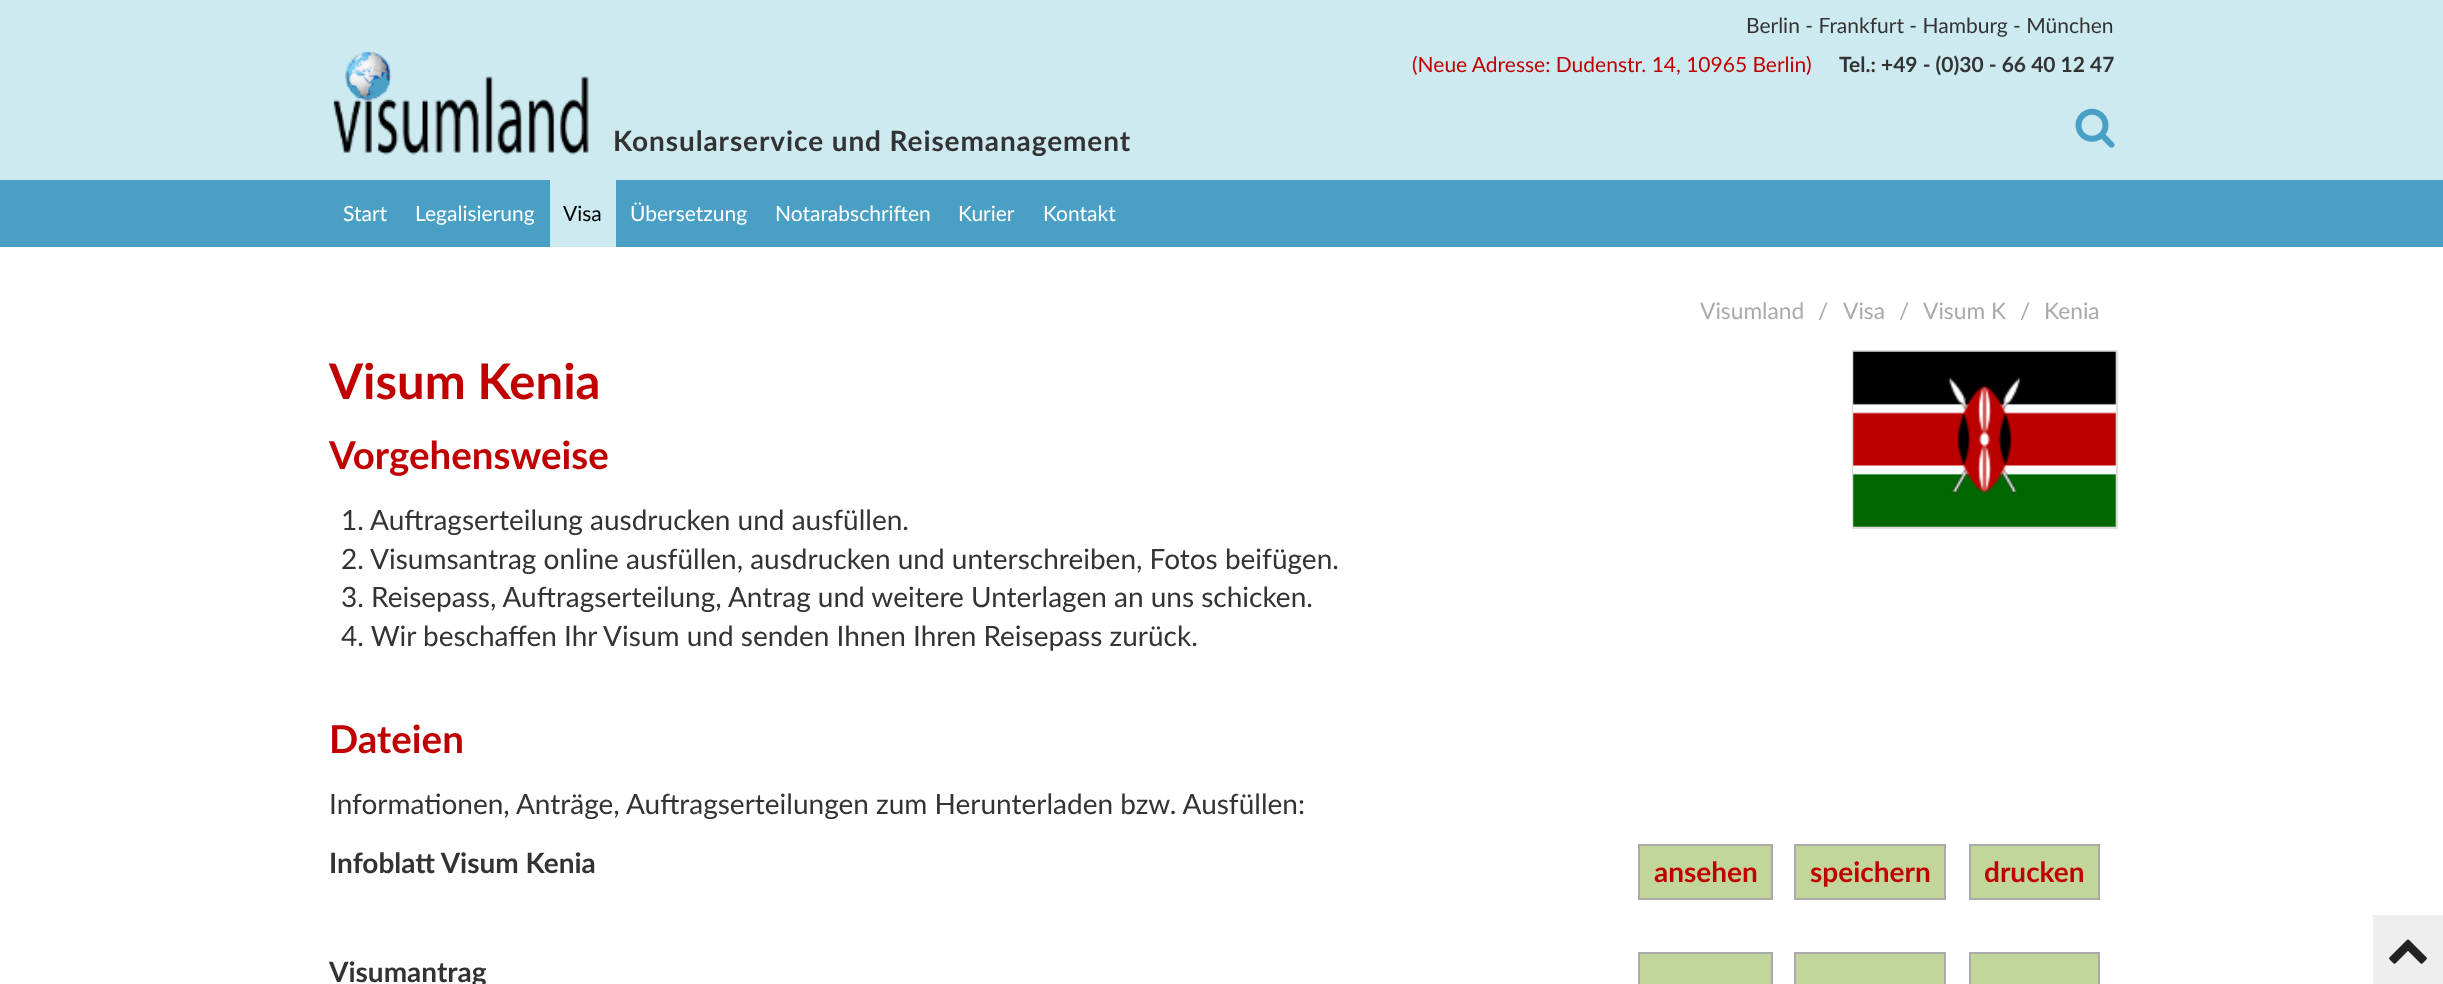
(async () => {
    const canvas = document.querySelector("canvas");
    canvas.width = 2443;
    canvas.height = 984;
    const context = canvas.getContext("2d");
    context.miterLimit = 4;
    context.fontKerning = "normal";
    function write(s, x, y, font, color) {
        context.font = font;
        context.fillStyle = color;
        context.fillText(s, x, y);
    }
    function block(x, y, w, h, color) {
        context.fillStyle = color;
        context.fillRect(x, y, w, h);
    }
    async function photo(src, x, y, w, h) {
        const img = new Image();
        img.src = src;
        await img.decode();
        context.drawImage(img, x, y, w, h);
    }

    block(0, 0, 2443, 984, "rgb(205, 234, 240)");
    write("Berlin - Frankfurt - Hamburg - München", 1746, 33, "21px Lato", "rgb(51, 51, 51)");
    write("(Neue Adresse: Dudenstr. 14, 10965 Berlin)", 1412, 72, "21px Lato", "rgb(192, 0, 0)");
    write("Tel.: +49 - (0)30 - 66 40 12 47", 1839, 72, "bold 21px Lato", "rgb(51, 51, 51)");
    await photo("media/1.png", 333, 50, 256, 105);
    context.letterSpacing = "0.9px";
    write("Konsularservice und Reisemanagement", 613, 151, "bold 28px Lato", "rgb(51, 51, 51)");
    await photo("media/2.png", 2075, 108, 40, 40);
    block(0, 180, 2443, 67, "rgb(73, 159, 196)");
    context.letterSpacing = "0px";
    write("Start", 343, 221, "21px Lato", "rgb(255, 255, 255)");
    write("Legalisierung", 415, 221, "21px Lato", "rgb(255, 255, 255)");
    block(550, 180, 66, 67, "rgb(205, 234, 240)");
    write("Visa", 563, 221, "21px Lato", "rgb(0, 0, 0)");
    write("Übersetzung", 630, 221, "21px Lato", "rgb(255, 255, 255)");
    write("Notarabschriften", 775, 221, "21px Lato", "rgb(255, 255, 255)");
    write("Kurier", 958, 221, "21px Lato", "rgb(255, 255, 255)");
    write("Kontakt", 1043, 221, "21px Lato", "rgb(255, 255, 255)");
    block(0, 247, 2443, 737, "rgb(255, 255, 255)");
    write("Visumland", 1700, 319, "22.75px Lato", "rgb(170, 170, 170)");
    write("/", 1818, 319, "22.75px Lato", "rgb(170, 170, 170)");
    write("Visa", 1843, 319, "22.75px Lato", "rgb(170, 170, 170)");
    write("/", 1899, 319, "22.75px Lato", "rgb(170, 170, 170)");
    write("Visum K", 1923, 319, "22.75px Lato", "rgb(170, 170, 170)");
    write("/", 2020, 319, "22.75px Lato", "rgb(170, 170, 170)");
    write("Kenia", 2044, 319, "22.75px Lato", "rgb(170, 170, 170)");
    write("Visum Kenia", 329, 399, "bold 49px Lato", "rgb(192, 0, 0)");
    context.strokeStyle = "rgb(221, 221, 221)";
    context.lineWidth = 2;
    context.strokeRect(1853, 351, 264, 177);
    await photo("media/3.png", 1853, 351, 263, 176);
    write("Vorgehensweise", 329, 469, "bold 38.5px Lato", "rgb(192, 0, 0)");
    write("1. Auftragserteilung ausdrucken und ausfüllen.", 341, 530, "28px Lato", "rgb(51, 51, 51)");
    write("2. Visumsantrag online ausfüllen, ausdrucken und unterschreiben, Fotos beifügen.", 341, 569, "28px Lato", "rgb(51, 51, 51)");
    write("3. Reisepass, Auftragserteilung, Antrag und weitere Unterlagen an uns schicken.", 341, 607, "28px Lato", "rgb(51, 51, 51)");
    write("4. Wir beschaffen Ihr Visum und senden Ihnen Ihren Reisepass zurück.", 341, 646, "28px Lato", "rgb(51, 51, 51)");
    write("Dateien", 329, 753, "bold 38.5px Lato", "rgb(192, 0, 0)");
    write("Informationen, Anträge, Auftragserteilungen zum Herunterladen bzw. Ausfüllen:", 329, 814, "28px Lato", "rgb(51, 51, 51)");
    write("Infoblatt Visum Kenia", 329, 873, "bold 28px Lato", "rgb(51, 51, 51)");
    context.fillStyle = "rgb(194, 214, 155)";
    context.beginPath();
    context.rect(1639, 845, 133, 54);
    context.fill();
    context.strokeStyle = "rgb(170, 170, 170)";
    context.stroke();
    write("ansehen", 1654, 882, "bold 28px Lato", "rgb(192, 0, 0)");
    context.fillStyle = "rgb(194, 214, 155)";
    context.beginPath();
    context.rect(1795, 845, 150, 54);
    context.fill();
    context.stroke();
    write("speichern", 1810, 882, "bold 28px Lato", "rgb(192, 0, 0)");
    context.fillStyle = "rgb(194, 214, 155)";
    context.beginPath();
    context.rect(1970, 845, 129, 54);
    context.fill();
    context.stroke();
    write("drucken", 1984, 882, "bold 28px Lato", "rgb(192, 0, 0)");
    write("Visumantrag", 329, 982, "bold 28px Lato", "rgb(51, 51, 51)");
    context.fillStyle = "rgb(194, 214, 155)";
    context.beginPath();
    context.rect(1639, 953, 133, 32);
    context.fill();
    context.stroke();
    context.beginPath();
    context.rect(1795, 953, 150, 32);
    context.fill();
    context.stroke();
    context.beginPath();
    context.rect(1970, 953, 129, 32);
    context.fill();
    context.stroke();
    block(2373, 915, 70, 69, "rgb(238, 238, 238)");
    await photo("media/4.png", 2389, 939, 38, 25);
})();
